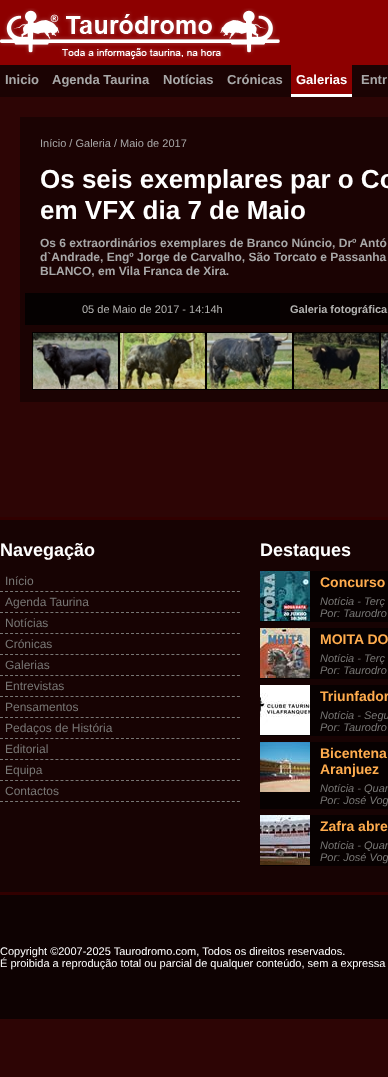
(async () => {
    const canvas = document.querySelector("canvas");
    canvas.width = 388;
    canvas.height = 1077;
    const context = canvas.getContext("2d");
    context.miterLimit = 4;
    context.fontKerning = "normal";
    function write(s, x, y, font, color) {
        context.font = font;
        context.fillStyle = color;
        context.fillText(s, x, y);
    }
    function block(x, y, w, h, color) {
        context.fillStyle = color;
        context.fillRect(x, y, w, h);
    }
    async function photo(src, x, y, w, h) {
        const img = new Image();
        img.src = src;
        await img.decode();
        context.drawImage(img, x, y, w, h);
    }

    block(0, 0, 388, 1077, "rgb(45, 5, 5)");
    block(0, 0, 388, 65, "rgb(141, 0, 0)");
    await photo("media/1.png", 0, 8, 280, 52);
    block(0, 65, 388, 32, "rgb(27, 3, 3)");
    write("Inicio", 5, 84, "bold 13px Liberation Sans", "rgb(168, 168, 168)");
    write("Agenda Taurina", 52, 84, "bold 13px Liberation Sans", "rgb(168, 168, 168)");
    write("Notícias", 163, 84, "bold 13px Liberation Sans", "rgb(168, 168, 168)");
    write("Crónicas", 227, 84, "bold 13px Liberation Sans", "rgb(168, 168, 168)");
    block(291, 65, 61, 29, "rgb(141, 0, 0)");
    block(291, 94, 61, 3, "rgb(255, 255, 255)");
    write("Galerias", 296, 84, "bold 13px Liberation Sans", "rgb(255, 255, 255)");
    write("Entr", 361, 84, "bold 13px Liberation Sans", "rgb(168, 168, 168)");
    block(20, 117, 368, 285, "rgb(27, 3, 3)");
    write("Início / Galeria / Maio de 2017", 40, 147, "11px Liberation Sans", "rgb(168, 168, 168)");
    write("Os seis exemplares par o Co", 40, 188, "bold 26px Liberation Sans", "rgb(255, 255, 255)");
    write("em VFX dia 7 de Maio", 40, 219, "bold 26px Liberation Sans", "rgb(255, 255, 255)");
    write("Os 6 extraordinários exemplares de Branco Núncio, Drº Antó", 40, 247, "bold 12px Liberation Sans", "rgb(168, 168, 168)");
    write("d`Andrade, Engº Jorge de Carvalho, São Torcato e Passanha", 40, 261, "bold 12px Liberation Sans", "rgb(168, 168, 168)");
    write("BLANCO, em Vila Franca de Xira.", 40, 275, "bold 12px Liberation Sans", "rgb(168, 168, 168)");
    block(25, 293, 255, 32, "rgb(5, 1, 1)");
    write("05 de Maio de 2017 - 14:14h", 82, 313, "11px Liberation Sans", "rgb(181, 180, 178)");
    block(280, 293, 108, 32, "rgb(8, 1, 1)");
    write("Galeria fotográfica", 290, 313, "bold 11px Liberation Sans", "rgb(181, 180, 178)");
    context.strokeStyle = "rgb(4, 0, 0)";
    context.strokeRect(32.5, 332.5, 86, 57);
    await photo("media/2.png", 33, 333, 85, 56);
    context.strokeRect(119.5, 332.5, 86, 57);
    await photo("media/3.png", 120, 333, 85, 56);
    context.strokeRect(206.5, 332.5, 86, 57);
    await photo("media/4.png", 207, 333, 85, 56);
    context.strokeRect(293.5, 332.5, 86, 57);
    await photo("media/5.png", 294, 333, 85, 56);
    context.strokeRect(380.5, 332.5, 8, 57);
    await photo("media/6.png", 381, 333, 7, 56);
    block(0, 520, 388, 372, "rgb(23, 3, 3)");
    block(0, 517, 388, 3, "rgb(49, 0, 0)");
    write("Navegação", 0, 556, "bold 18px Liberation Sans", "rgb(255, 255, 255)");
    context.beginPath();
    context.moveTo(0, 591.5);
    context.lineTo(240, 591.5);
    context.strokeStyle = "rgb(120, 119, 117)";
    context.setLineDash([3, 2.04]);
    context.stroke();
    write("Início", 5, 585, "12px Liberation Sans", "rgb(120, 119, 117)");
    context.beginPath();
    context.moveTo(0, 612.5);
    context.lineTo(240, 612.5);
    context.stroke();
    write("Agenda Taurina", 5, 606, "12px Liberation Sans", "rgb(120, 119, 117)");
    context.beginPath();
    context.moveTo(0, 633.5);
    context.lineTo(240, 633.5);
    context.stroke();
    write("Notícias", 5, 627, "12px Liberation Sans", "rgb(120, 119, 117)");
    context.beginPath();
    context.moveTo(0, 654.5);
    context.lineTo(240, 654.5);
    context.stroke();
    write("Crónicas", 5, 648, "12px Liberation Sans", "rgb(120, 119, 117)");
    context.beginPath();
    context.moveTo(0, 675.5);
    context.lineTo(240, 675.5);
    context.stroke();
    write("Galerias", 5, 669, "12px Liberation Sans", "rgb(120, 119, 117)");
    context.beginPath();
    context.moveTo(0, 696.5);
    context.lineTo(240, 696.5);
    context.stroke();
    write("Entrevistas", 5, 690, "12px Liberation Sans", "rgb(120, 119, 117)");
    context.beginPath();
    context.moveTo(0, 717.5);
    context.lineTo(240, 717.5);
    context.stroke();
    write("Pensamentos", 5, 711, "12px Liberation Sans", "rgb(120, 119, 117)");
    context.beginPath();
    context.moveTo(0, 738.5);
    context.lineTo(240, 738.5);
    context.stroke();
    write("Pedaços de História", 5, 732, "12px Liberation Sans", "rgb(120, 119, 117)");
    context.beginPath();
    context.moveTo(0, 759.5);
    context.lineTo(240, 759.5);
    context.stroke();
    write("Editorial", 5, 753, "12px Liberation Sans", "rgb(120, 119, 117)");
    context.beginPath();
    context.moveTo(0, 780.5);
    context.lineTo(240, 780.5);
    context.stroke();
    write("Equipa", 5, 774, "12px Liberation Sans", "rgb(120, 119, 117)");
    context.beginPath();
    context.moveTo(0, 801.5);
    context.lineTo(240, 801.5);
    context.stroke();
    write("Contactos", 5, 795, "12px Liberation Sans", "rgb(120, 119, 117)");
    write("Destaques", 260, 556, "bold 18px Liberation Sans", "rgb(255, 255, 255)");
    block(260, 571, 128, 51, "rgb(7, 1, 1)");
    await photo("media/7.png", 260, 571, 50, 50);
    write("Concurso", 320, 587, "bold 14px Liberation Sans", "rgb(255, 172, 78)");
    write("Notícia - Terç", 320, 605, "italic 11px Liberation Sans", "rgb(120, 119, 117)");
    write("Por: Taurodro", 320, 617, "italic 11px Liberation Sans", "rgb(120, 119, 117)");
    block(260, 628, 128, 51, "rgb(7, 1, 1)");
    await photo("media/8.png", 260, 628, 50, 50);
    write("MOITA DO", 320, 644, "bold 14px Liberation Sans", "rgb(255, 172, 78)");
    write("Notícia - Terç", 320, 662, "italic 11px Liberation Sans", "rgb(120, 119, 117)");
    write("Por: Taurodro", 320, 674, "italic 11px Liberation Sans", "rgb(120, 119, 117)");
    block(260, 685, 128, 51, "rgb(7, 1, 1)");
    await photo("media/9.png", 260, 685, 50, 50);
    write("Triunfador", 320, 701, "bold 14px Liberation Sans", "rgb(255, 172, 78)");
    write("Notícia - Segu", 320, 719, "italic 11px Liberation Sans", "rgb(120, 119, 117)");
    write("Por: Taurodro", 320, 731, "italic 11px Liberation Sans", "rgb(120, 119, 117)");
    block(260, 742, 128, 67, "rgb(7, 1, 1)");
    await photo("media/10.png", 260, 742, 50, 50);
    write("Bicentena", 320, 758, "bold 14px Liberation Sans", "rgb(255, 172, 78)");
    write("Aranjuez", 320, 774, "bold 14px Liberation Sans", "rgb(255, 172, 78)");
    write("Notícia - Quar", 320, 792, "italic 11px Liberation Sans", "rgb(120, 119, 117)");
    write("Por: José Vog", 320, 804, "italic 11px Liberation Sans", "rgb(120, 119, 117)");
    block(260, 815, 128, 51, "rgb(7, 1, 1)");
    await photo("media/11.png", 260, 815, 50, 50);
    write("Zafra abre", 320, 831, "bold 14px Liberation Sans", "rgb(255, 172, 78)");
    write("Notícia - Quar", 320, 849, "italic 11px Liberation Sans", "rgb(120, 119, 117)");
    write("Por: José Vog", 320, 861, "italic 11px Liberation Sans", "rgb(120, 119, 117)");
    block(0, 895, 388, 124, "rgb(14, 2, 2)");
    block(0, 892, 388, 3, "rgb(49, 0, 0)");
    write("Copyright ©2007-2025 Taurodromo.com, Todos os direitos reservados.", 0, 955, "11px Liberation Sans", "rgb(255, 255, 255)");
    write("É proibida a reprodução total ou parcial de qualquer conteúdo, sem a expressa", 0, 967, "11px Liberation Sans", "rgb(255, 255, 255)");
})();
